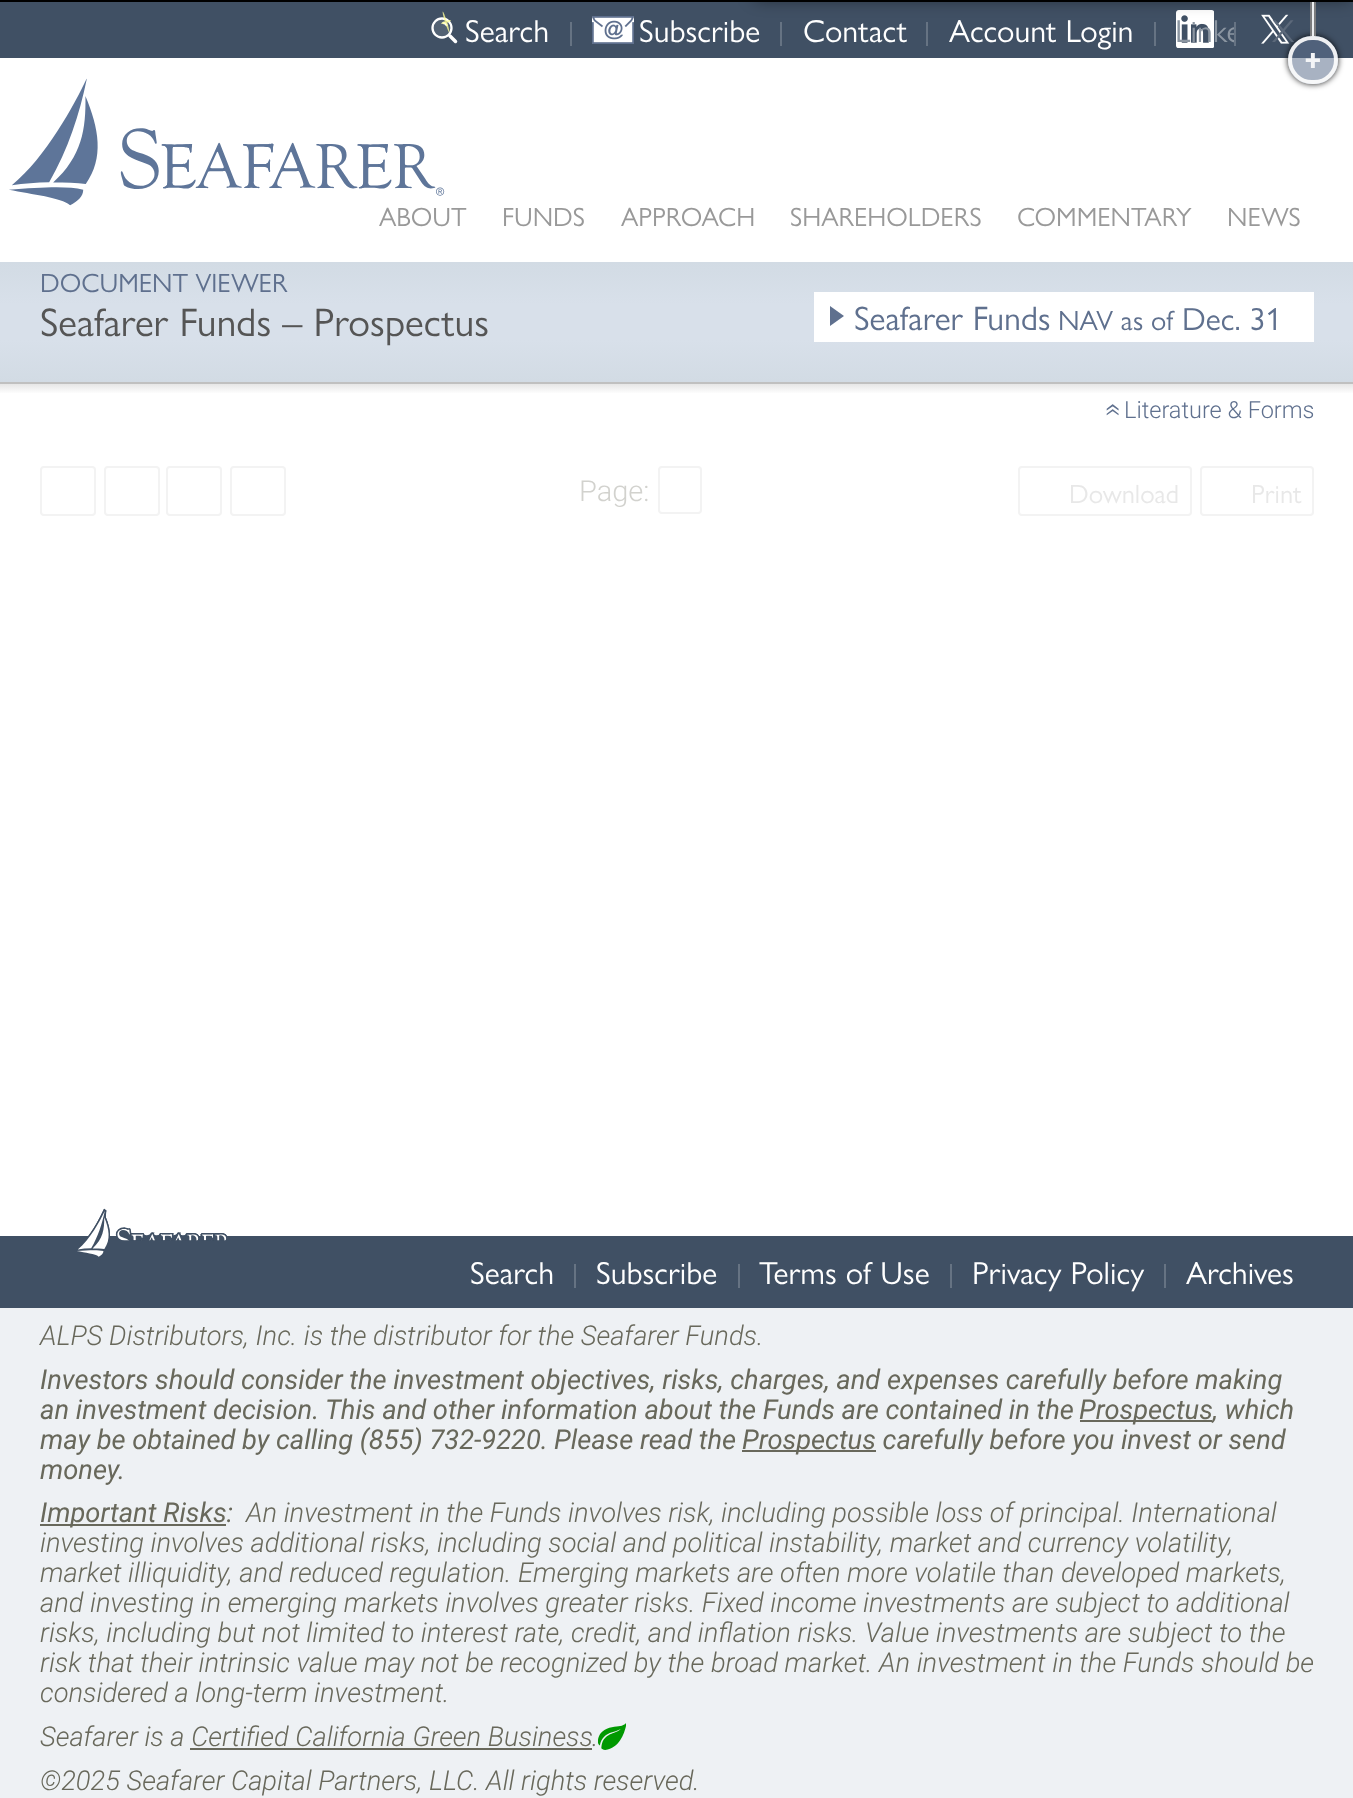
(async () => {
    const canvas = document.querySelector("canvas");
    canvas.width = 1353;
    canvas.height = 1798;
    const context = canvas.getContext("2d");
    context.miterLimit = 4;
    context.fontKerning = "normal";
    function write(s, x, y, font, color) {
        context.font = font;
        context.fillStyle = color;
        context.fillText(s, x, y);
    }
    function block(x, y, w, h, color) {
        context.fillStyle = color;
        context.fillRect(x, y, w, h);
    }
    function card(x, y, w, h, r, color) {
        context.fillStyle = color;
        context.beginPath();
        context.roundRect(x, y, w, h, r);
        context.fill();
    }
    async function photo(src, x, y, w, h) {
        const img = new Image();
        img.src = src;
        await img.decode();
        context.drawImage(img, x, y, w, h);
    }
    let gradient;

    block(0, 0, 1353, 1798, "rgb(255, 255, 255)");
    block(0, 2, 1353, 56, "rgb(64, 80, 100)");
    block(570, 22, 666, 24, "rgb(102, 115, 131)");
    block(572, 22, 208, 24, "rgb(64, 80, 100)");
    block(782, 22, 144, 24, "rgb(64, 80, 100)");
    block(928, 22, 226, 24, "rgb(64, 80, 100)");
    block(1156, 22, 78, 24, "rgb(64, 80, 100)");
    await photo("media/3.png", 1176, 10, 38, 38);
    await photo("media/4.png", 1261, 14, 29, 30);
    context.fillStyle = "rgba(0, 0, 0, 0.45)";
    context.filter = "blur(8px)";
    context.beginPath();
    context.roundRect(752, -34, 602, 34, 10);
    context.fill();
    context.filter = "none";
    context.save();
    context.beginPath();
    context.moveTo(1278, 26);
    context.lineTo(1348, 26);
    context.lineTo(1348, 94);
    context.lineTo(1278, 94);
    context.closePath();
    context.moveTo(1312, 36);
    context.lineTo(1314, 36);
    context.bezierCurveTo(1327.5, 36, 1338, 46.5, 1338, 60);
    context.bezierCurveTo(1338, 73.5, 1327.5, 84, 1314, 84);
    context.lineTo(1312, 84);
    context.bezierCurveTo(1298.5, 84, 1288, 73.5, 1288, 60);
    context.bezierCurveTo(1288, 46.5, 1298.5, 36, 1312, 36);
    context.closePath();
    context.clip("evenodd");
    context.fillStyle = "rgba(0, 0, 0, 0.9)";
    context.filter = "blur(3px)";
    context.beginPath();
    context.roundRect(1288, 36, 50, 48, 24);
    context.fill();
    context.filter = "none";
    context.restore();
    block(1312, 0, 2, 36, "rgb(236, 238, 240)");
    block(1314, 0, 2, 36, "rgb(122, 123, 125)");
    block(1310, 0, 2, 36, "rgb(122, 123, 125)");
    block(0, 0, 1353, 2, "rgb(0, 0, 0)");
    context.fillStyle = "rgb(83, 98, 116)";
    context.beginPath();
    context.arc(442, 28, 9.5, 0, Math.PI * 2);
    context.fill();
    context.strokeStyle = "rgb(255, 255, 255)";
    context.lineWidth = 2.3;
    context.stroke();
    context.beginPath();
    context.moveTo(443.5, 23);
    context.bezierCurveTo(444.5, 23, 446, 24, 446.5, 25);
    context.lineCap = "round";
    context.stroke();
    await photo("media/1.png", 441, 11, 10, 22);
    context.beginPath();
    context.moveTo(450, 36);
    context.lineTo(455.5, 41.5);
    context.lineWidth = 3.5;
    context.stroke();
    write("Search", 465, 42, "32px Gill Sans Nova", "rgb(255, 255, 255)");
    await photo("media/2.png", 592, 16, 42, 28);
    write("Subscribe", 639, 42, "32px Gill Sans Nova", "rgb(255, 255, 255)");
    write("Contact", 803, 42, "32px Gill Sans Nova", "rgb(255, 255, 255)");
    write("Account Login", 949, 42, "32px Gill Sans Nova", "rgb(255, 255, 255)");
    context.save();
    context.beginPath();
    context.rect(1156, 10, 78, 38);
    context.clip();
    write("Linke", 1175, 42, "32px Gill Sans Nova", "rgb(139, 149, 161)");
    context.restore();
    write("X", 1272, 42, "32px Gill Sans Nova", "rgb(92, 105, 122)");
    await photo("media/5.png", 9, 78, 436, 128);
    write("ABOUT", 379, 226, "26.5px Gill Sans Nova", "rgb(153, 153, 153)");
    write("FUNDS", 502, 226, "26.5px Gill Sans Nova", "rgb(153, 153, 153)");
    write("APPROACH", 621, 226, "26.5px Gill Sans Nova", "rgb(153, 153, 153)");
    write("SHAREHOLDERS", 790, 226, "26.5px Gill Sans Nova", "rgb(153, 153, 153)");
    write("COMMENTARY", 1017, 226, "26.5px Gill Sans Nova", "rgb(153, 153, 153)");
    write("NEWS", 1227, 226, "26.5px Gill Sans Nova", "rgb(153, 153, 153)");
    card(1288, 36, 50, 48, 24, "rgba(95, 112, 142, 0.54)");
    context.beginPath();
    context.roundRect(1290, 38, 46, 44, 22);
    context.strokeStyle = "rgba(255, 255, 255, 0.9)";
    context.lineWidth = 4;
    context.stroke();
    write("+", 1305, 70, "bold 29px Roboto", "rgb(244, 245, 247)");
    gradient = context.createLinearGradient(677, 382, 677, 262);
    gradient.addColorStop(0, "rgb(210, 219, 228)");
    gradient.addColorStop(0.35, "rgb(216, 224, 234)");
    gradient.addColorStop(0.65, "rgb(216, 224, 234)");
    gradient.addColorStop(1, "rgb(210, 219, 228)");
    context.fillStyle = gradient;
    context.fillRect(0, 262, 1353, 120);
    write("DOCUMENT VIEWER", 40, 292, "26.5px Gill Sans Nova", "rgb(95, 112, 142)");
    write("Seafarer Funds – Prospectus", 40, 336, "40px Gill Sans Nova", "rgb(85, 85, 85)");
    gradient = context.createLinearGradient(677, 384, 677, 394);
    gradient.addColorStop(0, "rgb(230, 230, 230)");
    gradient.addColorStop(1, "rgb(255, 255, 255)");
    context.fillStyle = gradient;
    context.fillRect(0, 384, 1353, 9);
    block(0, 382, 1353, 2, "rgb(192, 192, 192)");
    context.font = "300 31px Roboto";
    context.fillStyle = "rgb(95, 112, 142)";
    context.save();
    context.translate(1121, 417);
    context.rotate(-90 * Math.PI / 180);
    context.fillText("»", 0, 0);
    context.restore();
    write("Literature & Forms", 1124, 418, "300 23.5px Roboto", "rgb(95, 112, 142)");
    context.beginPath();
    context.roundRect(41, 467, 54, 48, 3);
    context.strokeStyle = "rgb(243, 243, 243)";
    context.lineWidth = 2;
    context.stroke();
    context.beginPath();
    context.roundRect(105, 467, 54, 48, 3);
    context.stroke();
    context.beginPath();
    context.roundRect(167, 467, 54, 48, 3);
    context.stroke();
    context.beginPath();
    context.roundRect(231, 467, 54, 48, 3);
    context.stroke();
    write("Page:", 579, 501, "300 29px Roboto", "rgb(210, 210, 206)");
    context.beginPath();
    context.roundRect(659, 467, 42, 46, 3);
    context.stroke();
    context.beginPath();
    context.roundRect(1019, 467, 172, 48, 3);
    context.stroke();
    write("Download", 1069, 503, "26.5px Gill Sans Nova", "rgb(232, 232, 232)");
    context.beginPath();
    context.roundRect(1201, 467, 112, 48, 3);
    context.stroke();
    write("Print", 1251, 503, "26.5px Gill Sans Nova", "rgb(232, 232, 232)");
    block(814, 292, 500, 50, "rgb(255, 255, 255)");
    context.fillStyle = "rgb(95, 112, 142)";
    context.beginPath();
    context.moveTo(830, 306);
    context.lineTo(844, 316);
    context.lineTo(830, 326);
    context.closePath();
    context.fill();
    write("Seafarer Funds", 854, 330, "34px Gill Sans Nova", "rgb(95, 112, 142)");
    write("NAV as of", 1058, 330, "28px Gill Sans Nova", "rgb(95, 112, 142)");
    write("Dec. 31", 1182, 330, "32px Gill Sans Nova", "rgb(95, 112, 142)");
    block(0, 1308, 1353, 490, "rgb(238, 241, 244)");
    block(0, 1236, 1353, 72, "rgb(64, 80, 100)");
    await photo("media/6.png", 77, 1208, 150, 49);
    block(574, 1264, 592, 24, "rgb(102, 115, 131)");
    write("Search", 470, 1284, "32px Gill Sans Nova", "rgb(255, 255, 255)");
    block(576, 1264, 162, 24, "rgb(64, 80, 100)");
    write("Subscribe", 596, 1284, "32px Gill Sans Nova", "rgb(255, 255, 255)");
    block(740, 1264, 210, 24, "rgb(64, 80, 100)");
    write("Terms of Use", 759, 1284, "32px Gill Sans Nova", "rgb(255, 255, 255)");
    block(952, 1264, 212, 24, "rgb(64, 80, 100)");
    write("Privacy Policy", 972, 1284, "32px Gill Sans Nova", "rgb(255, 255, 255)");
    write("Archives", 1186, 1284, "32px Gill Sans Nova", "rgb(255, 255, 255)");
    write("ALPS Distributors, Inc. is the distributor for the Seafarer Funds.", 40, 1345, "italic 300 27.3px Roboto", "rgb(104, 104, 91)");
    write("Investors should consider the investment objectives, risks, charges, and expenses carefully before making", 40, 1389, "italic 27.3px Roboto", "rgb(104, 104, 91)");
    write("an investment decision.", 40, 1419, "italic 27.3px Roboto", "rgb(104, 104, 91)");
    write("This and other information about the Funds are contained in the", 325, 1419, "italic 27.3px Roboto", "rgb(104, 104, 91)");
    block(1080, 1420, 132, 2, "rgb(104, 104, 91)");
    write("Prospectus, which", 1079, 1419, "italic 27.3px Roboto", "rgb(104, 104, 91)");
    write("may be obtained by calling (855) 732-9220.", 40, 1449, "italic 27.3px Roboto", "rgb(104, 104, 91)");
    write("Please read the", 554, 1449, "italic 27.3px Roboto", "rgb(104, 104, 91)");
    block(742, 1450, 134, 2, "rgb(104, 104, 91)");
    write("Prospectus carefully before you invest or send", 742, 1449, "italic 27.3px Roboto", "rgb(104, 104, 91)");
    write("money.", 40, 1479, "italic 27.3px Roboto", "rgb(104, 104, 91)");
    block(40, 1524, 186, 2, "rgb(104, 104, 91)");
    write("Important Risks:", 40, 1522, "italic 27.3px Roboto", "rgb(104, 104, 91)");
    write("An investment in the Funds involves risk, including possible loss of principal. International", 246, 1522, "italic 300 27.3px Roboto", "rgb(104, 104, 91)");
    write("investing involves additional risks, including social and political instability, market and currency volatility,", 40, 1552, "italic 300 27.3px Roboto", "rgb(104, 104, 91)");
    write("market illiquidity, and reduced regulation. Emerging markets are often more volatile than developed markets,", 40, 1582, "italic 300 27.3px Roboto", "rgb(104, 104, 91)");
    write("and investing in emerging markets involves greater risks. Fixed income investments are subject to additional", 40, 1612, "italic 300 27.3px Roboto", "rgb(104, 104, 91)");
    write("risks, including but not limited to interest rate, credit, and inflation risks. Value investments are subject to the", 40, 1642, "italic 300 27.3px Roboto", "rgb(104, 104, 91)");
    write("risk that their intrinsic value may not be recognized by the broad market. An investment in the Funds should be", 40, 1672, "italic 300 27.3px Roboto", "rgb(104, 104, 91)");
    write("considered a long-term investment.", 40, 1702, "italic 300 27.3px Roboto", "rgb(104, 104, 91)");
    write("Seafarer is a Certified California Green Business", 40, 1746, "italic 300 27.3px Roboto", "rgb(104, 104, 91)");
    write(".", 592, 1746, "italic 300 27.3px Roboto", "rgb(104, 104, 91)");
    await photo("media/7.png", 598, 1723, 28, 27);
    block(190, 1748, 402, 2, "rgb(104, 104, 91)");
    write("©2025 Seafarer Capital Partners, LLC. All rights reserved.", 40, 1790, "italic 300 27.3px Roboto", "rgb(104, 104, 91)");
})();
